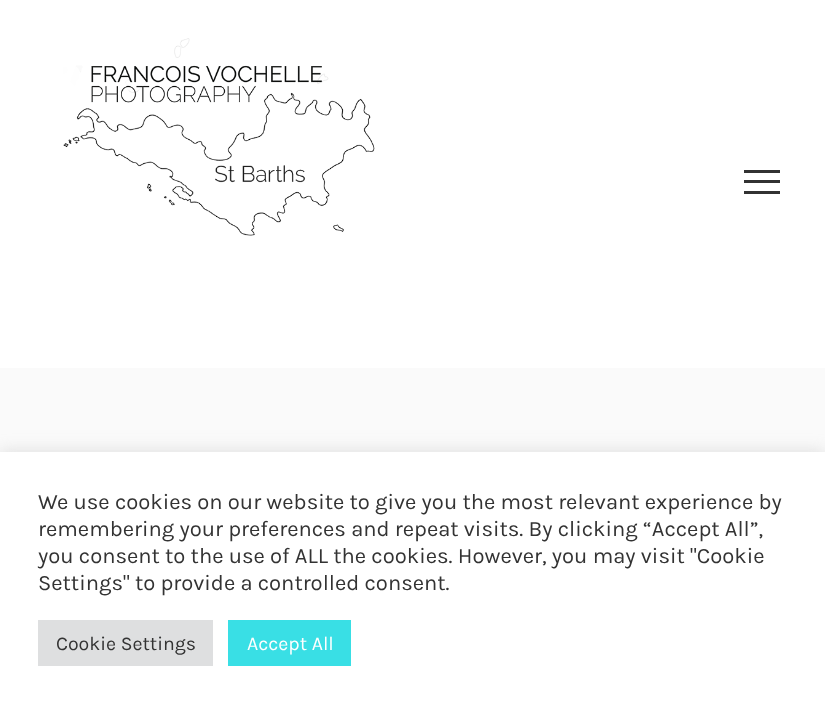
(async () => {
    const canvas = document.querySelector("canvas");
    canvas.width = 825;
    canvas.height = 710;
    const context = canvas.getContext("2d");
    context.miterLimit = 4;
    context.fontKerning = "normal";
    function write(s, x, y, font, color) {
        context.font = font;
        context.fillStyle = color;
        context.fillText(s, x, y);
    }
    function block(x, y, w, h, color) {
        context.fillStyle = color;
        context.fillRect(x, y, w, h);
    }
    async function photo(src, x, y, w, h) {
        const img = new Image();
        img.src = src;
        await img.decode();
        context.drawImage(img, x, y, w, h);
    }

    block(0, 0, 825, 710, "rgb(255, 255, 255)");
    await photo("media/1.png", 63, 38, 312, 198);
    block(744, 170, 36, 3, "rgb(50, 50, 50)");
    block(744, 180, 36, 3, "rgb(50, 50, 50)");
    block(744, 191, 36, 3, "rgb(50, 50, 50)");
    block(0, 368, 825, 84, "rgb(250, 250, 250)");
    context.fillStyle = "rgba(172, 171, 171, 0.3)";
    context.filter = "blur(7.5px)";
    context.beginPath();
    context.rect(0, 450, 825, 260);
    context.fill();
    context.filter = "none";
    block(0, 452, 825, 258, "rgb(255, 255, 255)");
    write("We use cookies on our website to give you the most relevant experience by", 38, 509, "22px Karla", "rgb(51, 51, 51)");
    write("remembering your preferences and repeat visits. By clicking “Accept All”,", 38, 536, "22px Karla", "rgb(51, 51, 51)");
    write("you consent to the use of ALL the cookies. However, you may visit \"Cookie", 38, 563, "22px Karla", "rgb(51, 51, 51)");
    write("Settings\" to provide a controlled consent.", 38, 590, "22px Karla", "rgb(51, 51, 51)");
    block(38, 620, 175, 46, "rgb(222, 223, 224)");
    write("Cookie Settings", 56, 650, "19.5px Karla", "rgb(51, 51, 51)");
    block(228, 620, 123, 46, "rgb(57, 223, 229)");
    write("Accept All", 247, 650, "19.5px Karla", "rgb(255, 255, 255)");
})();
